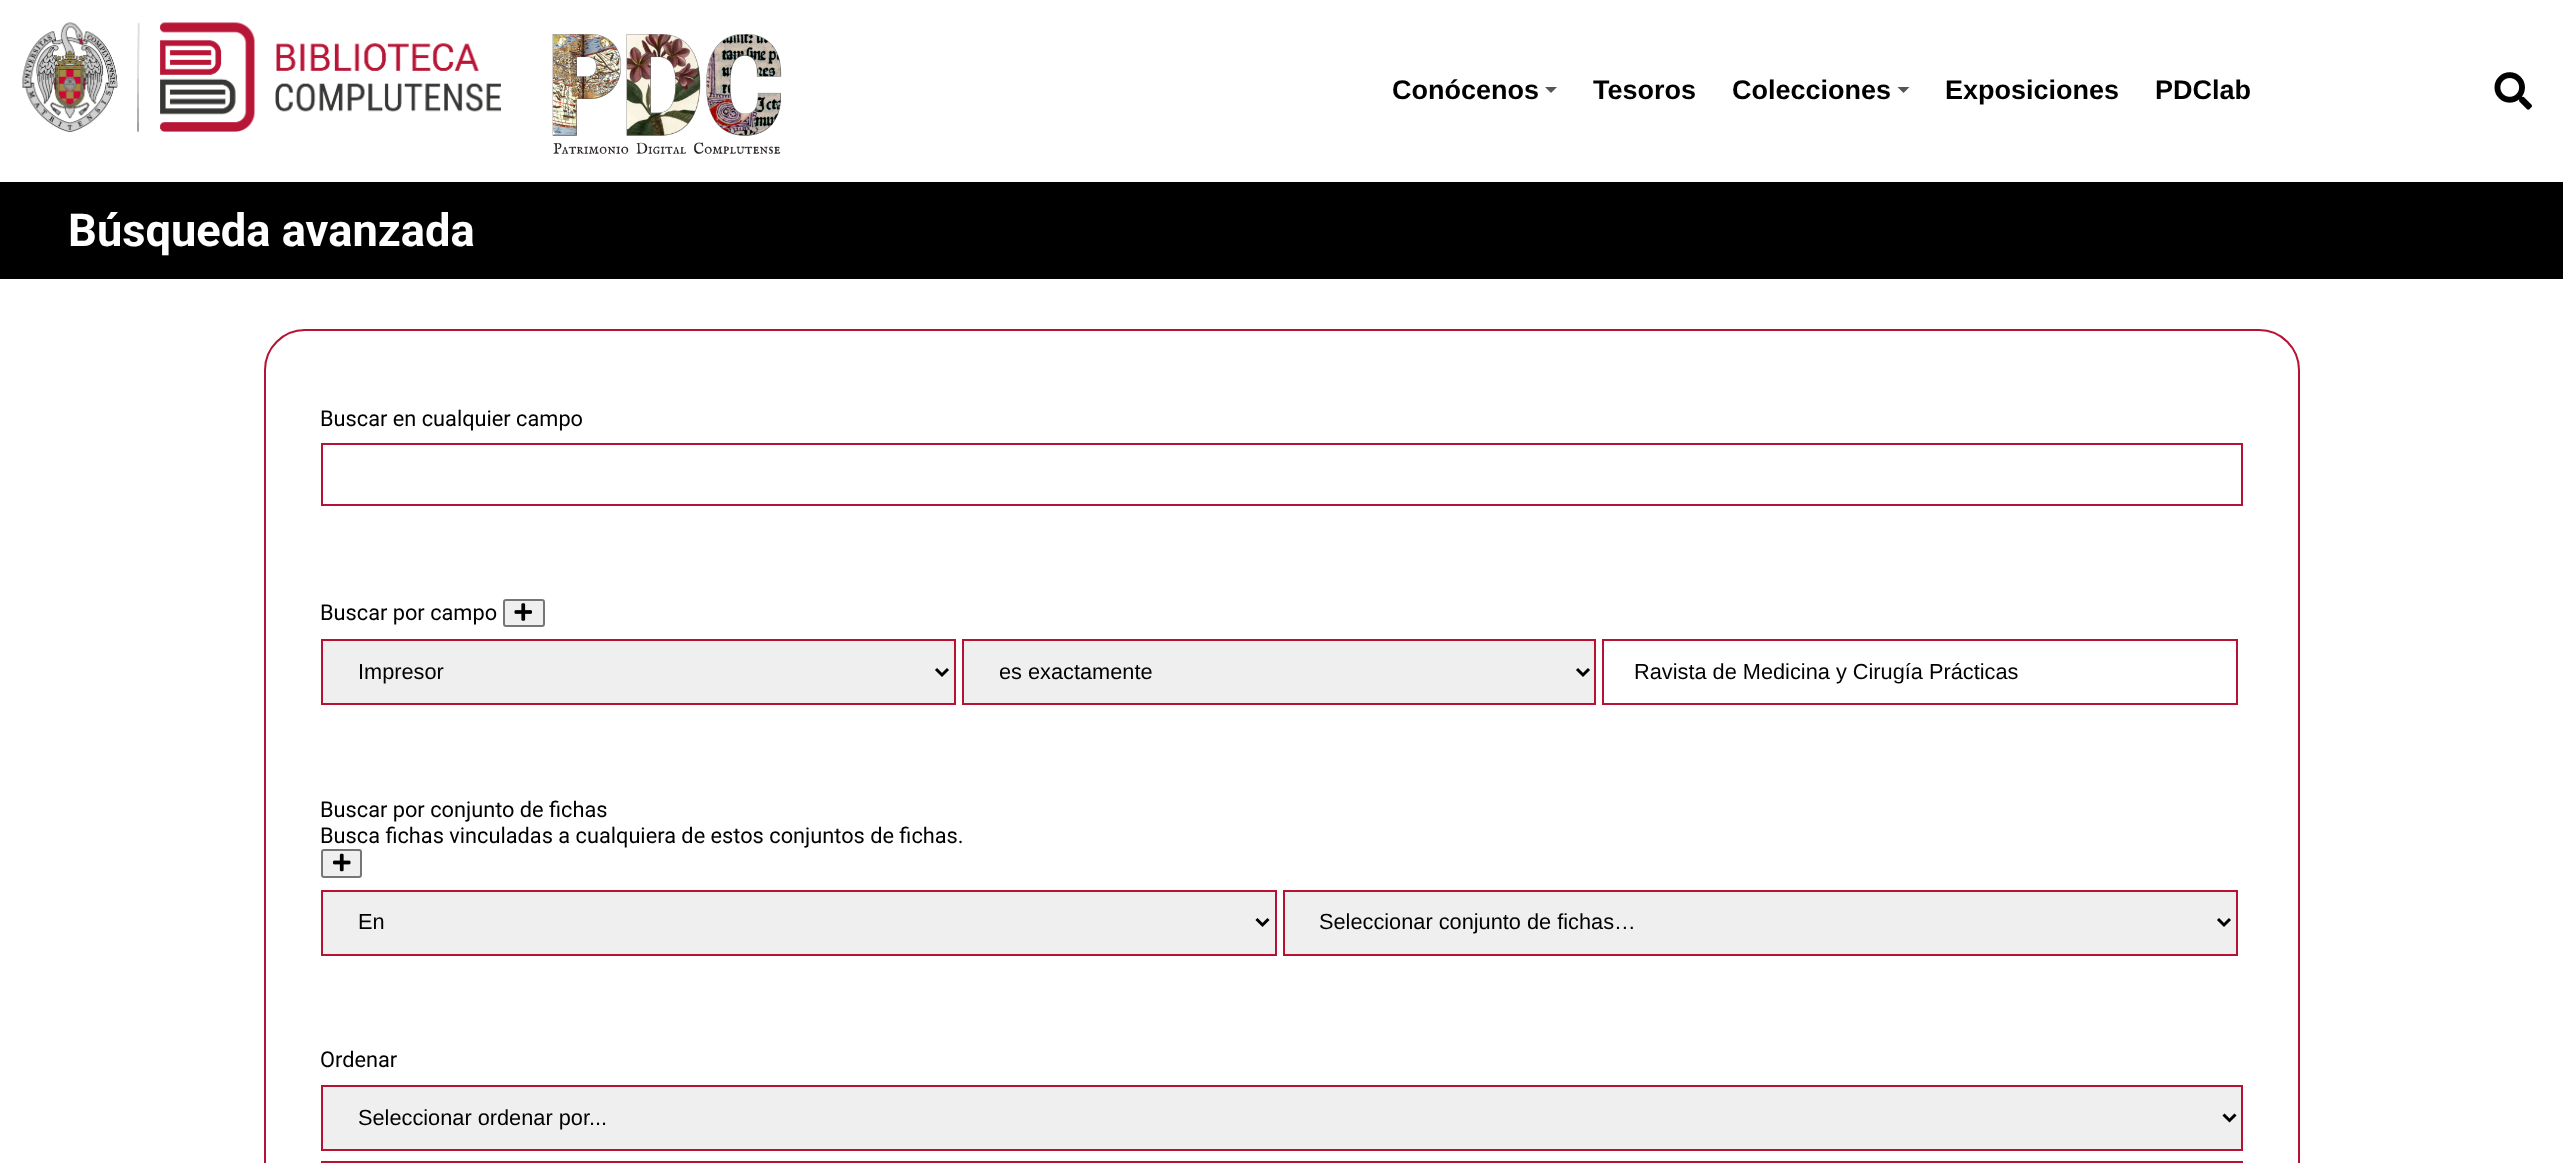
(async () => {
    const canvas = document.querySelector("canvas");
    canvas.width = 2563;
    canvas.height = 1163;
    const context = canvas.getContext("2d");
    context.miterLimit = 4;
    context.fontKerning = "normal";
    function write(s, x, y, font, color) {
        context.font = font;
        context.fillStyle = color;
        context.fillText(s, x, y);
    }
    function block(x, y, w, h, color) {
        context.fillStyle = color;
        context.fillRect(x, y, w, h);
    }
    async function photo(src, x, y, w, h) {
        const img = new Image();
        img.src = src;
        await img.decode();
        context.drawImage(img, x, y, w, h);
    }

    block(0, 0, 2563, 1163, "rgb(255, 255, 255)");
    await photo("media/1.png", 22, 22, 479, 110);
    await photo("media/2.png", 552, 34, 230, 120);
    write("Conócenos", 1392, 99, "bold 27px Liberation Sans", "rgb(0, 0, 0)");
    context.fillStyle = "rgb(85, 85, 85)";
    context.beginPath();
    context.moveTo(1545, 87);
    context.lineTo(1557, 87);
    context.lineTo(1551, 93);
    context.closePath();
    context.fill();
    write("Tesoros", 1593, 99, "bold 27px Liberation Sans", "rgb(0, 0, 0)");
    write("Colecciones", 1732, 99, "bold 27px Liberation Sans", "rgb(0, 0, 0)");
    context.fillStyle = "rgb(85, 85, 85)";
    context.beginPath();
    context.moveTo(1897.5, 87);
    context.lineTo(1909.5, 87);
    context.lineTo(1903.5, 93);
    context.closePath();
    context.fill();
    write("Exposiciones", 1945, 99, "bold 27px Liberation Sans", "rgb(0, 0, 0)");
    write("PDClab", 2155, 99, "bold 27px Liberation Sans", "rgb(0, 0, 0)");
    await photo("media/3.png", 2494, 72, 38, 38);
    block(0, 182, 2563, 97, "rgb(0, 0, 0)");
    write("Búsqueda avanzada", 68, 246, "bold 45.25px Roboto", "rgb(255, 255, 255)");
    context.beginPath();
    context.roundRect(265, 330, 2034, 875, 40);
    context.strokeStyle = "rgb(183, 18, 52)";
    context.lineWidth = 2;
    context.stroke();
    write("Buscar en cualquier campo", 320, 426, "21.75px Roboto", "rgb(0, 0, 0)");
    context.strokeRect(322, 444, 1920, 61);
    write("Buscar por campo", 320, 620, "21.75px Roboto", "rgb(0, 0, 0)");
    context.fillStyle = "rgb(239, 239, 239)";
    context.beginPath();
    context.roundRect(504, 600, 40, 26, 2);
    context.fill();
    context.strokeStyle = "rgb(118, 118, 118)";
    context.stroke();
    await photo("media/4.png", 514, 603, 18, 18);
    context.beginPath();
    context.rect(322, 640, 633, 64);
    context.fill();
    context.strokeStyle = "rgb(183, 18, 52)";
    context.stroke();
    context.beginPath();
    context.moveTo(936, 669);
    context.lineTo(942, 675);
    context.lineTo(948, 669);
    context.strokeStyle = "rgb(0, 0, 0)";
    context.lineWidth = 3;
    context.stroke();
    write("Impresor", 358, 679, "21.75px Liberation Sans", "rgb(0, 0, 0)");
    context.fillStyle = "rgb(239, 239, 239)";
    context.beginPath();
    context.rect(963, 640, 632, 64);
    context.fill();
    context.strokeStyle = "rgb(183, 18, 52)";
    context.lineWidth = 2;
    context.stroke();
    context.beginPath();
    context.moveTo(1577, 669);
    context.lineTo(1583, 675);
    context.lineTo(1589, 669);
    context.strokeStyle = "rgb(0, 0, 0)";
    context.lineWidth = 3;
    context.stroke();
    write("es exactamente", 999, 679, "21.75px Liberation Sans", "rgb(0, 0, 0)");
    context.strokeStyle = "rgb(183, 18, 52)";
    context.lineWidth = 2;
    context.strokeRect(1603, 640, 634, 64);
    write("Ravista de Medicina y Cirugía Prácticas", 1634, 679, "21.75px Liberation Sans", "rgb(0, 0, 0)");
    write("Buscar por conjunto de fichas", 320, 817, "21.75px Roboto", "rgb(0, 0, 0)");
    write("Busca fichas vinculadas a cualquiera de estos conjuntos de fichas.", 320, 843, "21.75px Roboto", "rgb(0, 0, 0)");
    context.fillStyle = "rgb(239, 239, 239)";
    context.beginPath();
    context.roundRect(322, 850, 39, 27, 2);
    context.fill();
    context.strokeStyle = "rgb(118, 118, 118)";
    context.stroke();
    await photo("media/5.png", 333, 853, 18, 19);
    context.beginPath();
    context.rect(322, 891, 954, 64);
    context.fill();
    context.strokeStyle = "rgb(183, 18, 52)";
    context.stroke();
    context.beginPath();
    context.moveTo(1256.5, 919);
    context.lineTo(1262.5, 925);
    context.lineTo(1268.5, 919);
    context.strokeStyle = "rgb(0, 0, 0)";
    context.lineWidth = 3;
    context.stroke();
    write("En", 358, 929, "21.75px Liberation Sans", "rgb(0, 0, 0)");
    context.fillStyle = "rgb(239, 239, 239)";
    context.beginPath();
    context.rect(1284, 891, 953, 64);
    context.fill();
    context.strokeStyle = "rgb(183, 18, 52)";
    context.lineWidth = 2;
    context.stroke();
    context.beginPath();
    context.moveTo(2218, 919);
    context.lineTo(2224, 925);
    context.lineTo(2230, 919);
    context.strokeStyle = "rgb(0, 0, 0)";
    context.lineWidth = 3;
    context.stroke();
    write("Seleccionar conjunto de fichas…", 1319, 929, "21.75px Liberation Sans", "rgb(0, 0, 0)");
    write("Ordenar", 320, 1067, "21.75px Roboto", "rgb(0, 0, 0)");
    context.fillStyle = "rgb(239, 239, 239)";
    context.beginPath();
    context.rect(322, 1086, 1920, 64);
    context.fill();
    context.strokeStyle = "rgb(183, 18, 52)";
    context.lineWidth = 2;
    context.stroke();
    context.beginPath();
    context.moveTo(2223.5, 1114.5);
    context.lineTo(2229.5, 1120.5);
    context.lineTo(2235.5, 1114.5);
    context.strokeStyle = "rgb(0, 0, 0)";
    context.lineWidth = 3;
    context.stroke();
    write("Seleccionar ordenar por...", 358, 1125, "21.75px Liberation Sans", "rgb(0, 0, 0)");
    context.strokeStyle = "rgb(183, 18, 52)";
    context.lineWidth = 2;
    context.strokeRect(322, 1162, 1920, 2);
})();
